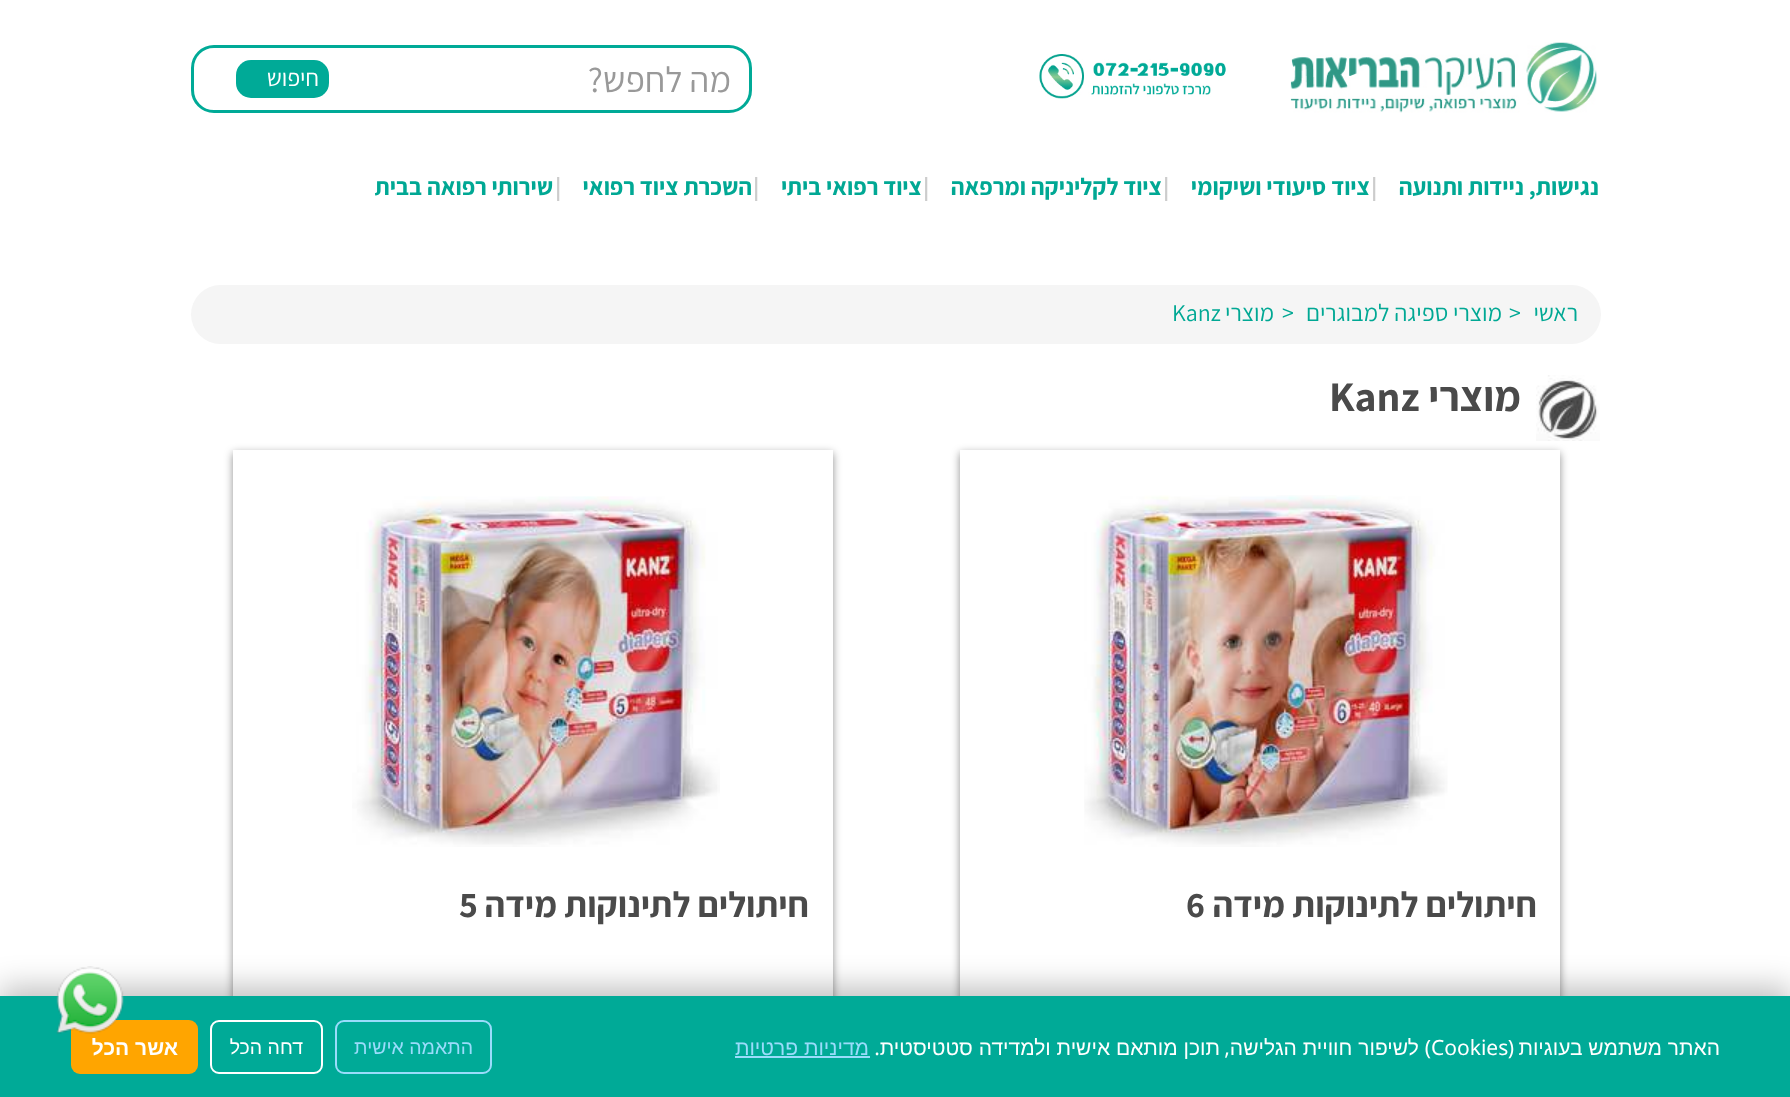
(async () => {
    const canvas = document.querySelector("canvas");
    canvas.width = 1790;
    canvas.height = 1097;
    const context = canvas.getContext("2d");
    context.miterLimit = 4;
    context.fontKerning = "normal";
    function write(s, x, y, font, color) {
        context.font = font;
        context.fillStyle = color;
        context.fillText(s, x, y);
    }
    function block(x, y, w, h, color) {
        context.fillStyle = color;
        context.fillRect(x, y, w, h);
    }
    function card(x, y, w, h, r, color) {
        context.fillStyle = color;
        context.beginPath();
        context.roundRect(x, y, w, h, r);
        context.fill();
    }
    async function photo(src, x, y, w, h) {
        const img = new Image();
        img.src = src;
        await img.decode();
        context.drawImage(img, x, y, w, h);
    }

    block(0, 0, 1790, 1097, "rgb(255, 255, 255)");
    await photo("media/1.png", 1290, 42, 307, 71);
    await photo("media/2.png", 1039, 54, 187, 45);
    context.beginPath();
    context.roundRect(192.5, 46.5, 558, 65, 21.5);
    context.strokeStyle = "rgb(0, 170, 151)";
    context.lineWidth = 3;
    context.stroke();
    context.direction = "rtl";
    write("מה לחפש?", 731, 92, "36px Assistant", "rgb(153, 153, 153)");
    card(236, 60, 93, 38, 15, "rgb(0, 170, 151)");
    write("חיפוש", 319, 86, "24px Assistant", "rgb(255, 255, 255)");
    write("נגישות, ניידות ותנועה", 1599, 195, "bold 24px Assistant", "rgb(0, 168, 148)");
    context.direction = "ltr";
    write("|", 1371, 195, "bold 24px Assistant", "rgb(204, 204, 204)");
    context.direction = "rtl";
    write("ציוד סיעודי ושיקומי", 1370, 195, "bold 24px Assistant", "rgb(0, 168, 148)");
    context.direction = "ltr";
    write("|", 1163, 195, "bold 24px Assistant", "rgb(204, 204, 204)");
    context.direction = "rtl";
    write("ציוד לקליניקה ומרפאה", 1162, 195, "bold 24px Assistant", "rgb(0, 168, 148)");
    context.direction = "ltr";
    write("|", 923, 195, "bold 24px Assistant", "rgb(204, 204, 204)");
    context.direction = "rtl";
    write("ציוד רפואי ביתי", 922, 195, "bold 24px Assistant", "rgb(0, 168, 148)");
    context.direction = "ltr";
    write("|", 753, 195, "bold 24px Assistant", "rgb(204, 204, 204)");
    context.direction = "rtl";
    write("השכרת ציוד רפואי", 752, 195, "bold 24px Assistant", "rgb(0, 168, 148)");
    context.direction = "ltr";
    write("|", 555, 195, "bold 24px Assistant", "rgb(204, 204, 204)");
    context.direction = "rtl";
    write("שירותי רפואה בבית", 553, 195, "bold 24px Assistant", "rgb(0, 168, 148)");
    card(191, 285, 1410, 59, 29.5, "rgb(245, 245, 245)");
    write("ראשי", 1578, 321, "24px Assistant", "rgb(0, 168, 148)");
    context.direction = "ltr";
    write(">", 1509, 321, "24px Assistant", "rgb(0, 168, 148)");
    context.direction = "rtl";
    write("מוצרי ספיגה למבוגרים", 1502, 321, "24px Assistant", "rgb(0, 168, 148)");
    context.direction = "ltr";
    write(">", 1282, 321, "24px Assistant", "rgb(0, 168, 148)");
    context.direction = "rtl";
    write("מוצרי", 1274, 321, "24px Assistant", "rgb(0, 168, 148)");
    context.direction = "ltr";
    write("Kanz", 1172, 321, "24px Assistant", "rgb(0, 168, 148)");
    await photo("media/3.png", 1536, 375, 64, 66);
    context.direction = "rtl";
    write("מוצרי", 1521, 411, "bold 42px Assistant", "rgb(74, 74, 74)");
    context.direction = "ltr";
    write("Kanz", 1329, 411, "bold 42px Assistant", "rgb(74, 74, 74)");
    context.save();
    context.beginPath();
    context.moveTo(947, 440);
    context.lineTo(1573, 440);
    context.lineTo(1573, 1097);
    context.lineTo(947, 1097);
    context.closePath();
    context.moveTo(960, 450);
    context.lineTo(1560, 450);
    context.lineTo(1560, 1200);
    context.lineTo(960, 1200);
    context.closePath();
    context.clip("evenodd");
    context.fillStyle = "rgba(0, 0, 0, 0.44)";
    context.filter = "blur(4px)";
    context.beginPath();
    context.rect(960, 453, 600, 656);
    context.fill();
    context.filter = "none";
    context.restore();
    await photo("media/4.png", 1084, 495, 364, 352);
    context.direction = "rtl";
    write("חיתולים לתינוקות מידה", 1537, 917, "bold 36px Assistant", "rgb(74, 74, 74)");
    context.direction = "ltr";
    write("6", 1186, 917, "bold 36px Assistant", "rgb(74, 74, 74)");
    context.fillStyle = "rgba(0, 0, 0, 0.44)";
    context.filter = "blur(4px)";
    context.beginPath();
    context.rect(233, 453, 600, 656);
    context.fill();
    context.filter = "none";
    block(233, 450, 600, 546, "rgb(255, 255, 255)");
    await photo("media/5.png", 352, 496, 368, 351);
    context.direction = "rtl";
    write("חיתולים לתינוקות מידה", 809, 917, "bold 36px Assistant", "rgb(74, 74, 74)");
    context.direction = "ltr";
    write("5", 459, 917, "bold 36px Assistant", "rgb(74, 74, 74)");
    context.fillStyle = "rgba(0, 0, 0, 0.25)";
    context.filter = "blur(15px)";
    context.beginPath();
    context.rect(0, 987, 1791, 102);
    context.fill();
    context.filter = "none";
    block(0, 996, 1790, 101, "rgb(0, 170, 151)");
    card(71, 1020, 127, 54, 9, "rgb(255, 165, 0)");
    await photo("media/6.png", 56, 966, 68, 68);
    context.direction = "rtl";
    write("האתר משתמש בעוגיות", 1720, 1055, "21px Liberation Sans", "rgb(255, 255, 255)");
    write("(", 1514, 1055, "21px Noto Sans", "rgb(255, 255, 255)");
    context.direction = "ltr";
    write("Cookies", 1431, 1055, "21px Noto Sans", "rgb(255, 255, 255)");
    context.direction = "rtl";
    write(")", 1431, 1055, "21px Noto Sans", "rgb(255, 255, 255)");
    write("לשיפור חוויית הגלישה", 1419, 1055, "21px Liberation Sans", "rgb(255, 255, 255)");
    write(",", 1230, 1055, "21px Noto Sans", "rgb(255, 255, 255)");
    write("תוכן מותאם אישית ולמדידה סטטיסטית", 1220, 1055, "21px Liberation Sans", "rgb(255, 255, 255)");
    write(".", 880, 1055, "21px Noto Sans", "rgb(255, 255, 255)");
    write("מדיניות פרטיות", 869, 1055, "21px Liberation Sans", "rgb(154, 220, 251)");
    block(735, 1056, 135, 2, "rgb(154, 220, 251)");
    context.beginPath();
    context.roundRect(336, 1021, 155, 52, 8);
    context.strokeStyle = "rgb(154, 220, 251)";
    context.lineWidth = 2;
    context.stroke();
    write("התאמה אישית", 473, 1054, "19.5px Liberation Sans", "rgb(154, 220, 251)");
    context.beginPath();
    context.roundRect(211, 1021, 111, 52, 8);
    context.strokeStyle = "rgb(255, 255, 255)";
    context.stroke();
    write("דחה הכל", 303, 1054, "19.5px Liberation Sans", "rgb(255, 255, 255)");
    write("אשר הכל", 178, 1055, "bold 21px Liberation Sans", "rgb(255, 255, 255)");
})();
